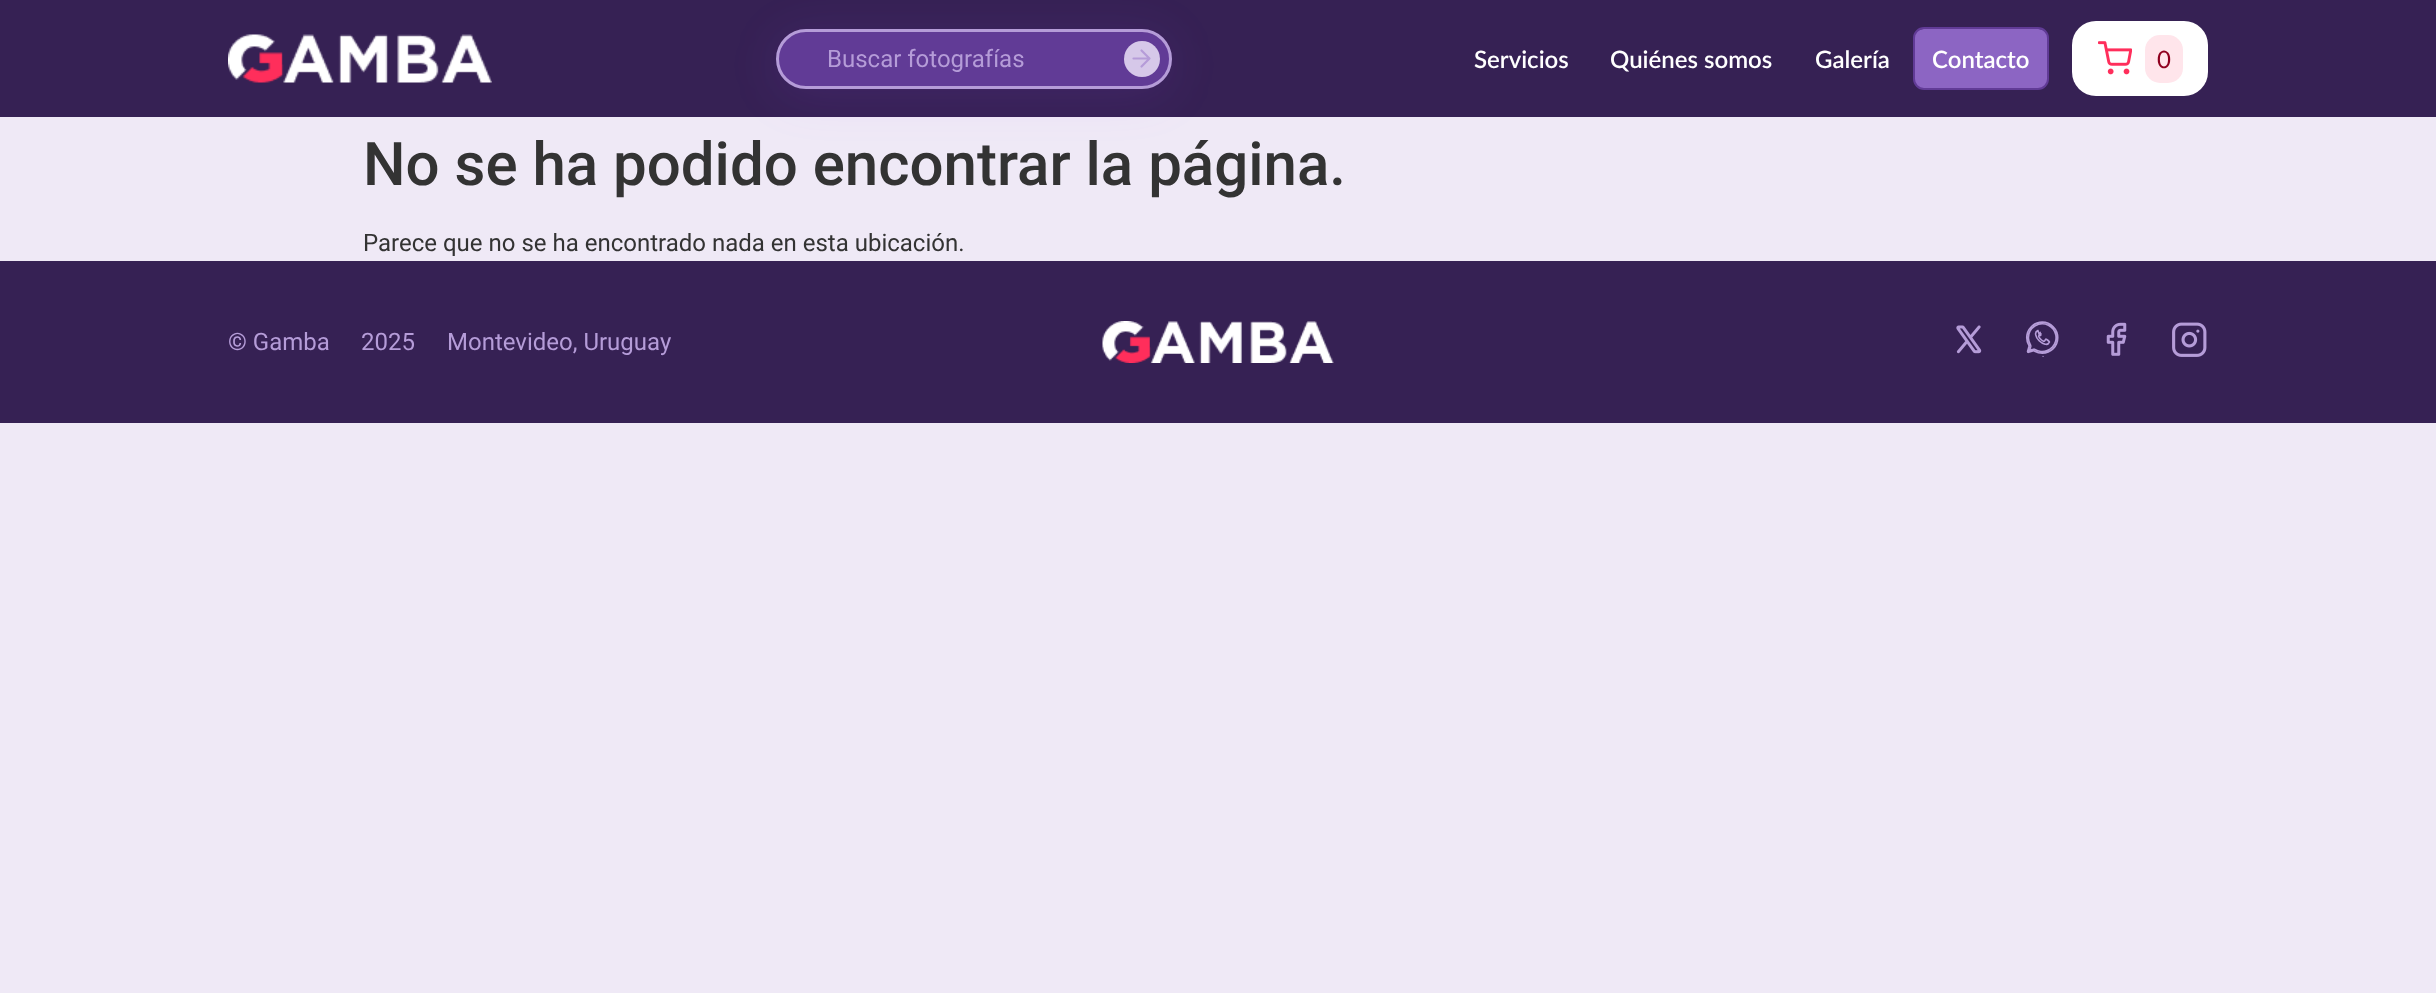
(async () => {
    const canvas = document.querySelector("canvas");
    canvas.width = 2436;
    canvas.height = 993;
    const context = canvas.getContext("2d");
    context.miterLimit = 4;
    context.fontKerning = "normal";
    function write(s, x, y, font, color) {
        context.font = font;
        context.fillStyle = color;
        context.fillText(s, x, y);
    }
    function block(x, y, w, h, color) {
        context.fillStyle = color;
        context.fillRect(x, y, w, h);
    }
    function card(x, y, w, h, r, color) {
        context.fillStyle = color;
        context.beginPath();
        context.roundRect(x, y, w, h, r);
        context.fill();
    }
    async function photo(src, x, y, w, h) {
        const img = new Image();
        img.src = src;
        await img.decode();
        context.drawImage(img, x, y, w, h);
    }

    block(0, 0, 2436, 993, "rgb(239, 233, 246)");
    block(0, 0, 2436, 117, "rgb(54, 33, 84)");
    await photo("media/1.png", 228, 34, 264, 49);
    context.fillStyle = "rgba(151, 71, 255, 0.11)";
    context.filter = "blur(24px)";
    context.beginPath();
    context.roundRect(776, 35, 396, 60, 30);
    context.fill();
    context.filter = "none";
    context.fillStyle = "rgb(97, 59, 150)";
    context.beginPath();
    context.roundRect(777.5, 30.5, 393, 57, 28.5);
    context.fill();
    context.strokeStyle = "rgb(181, 156, 216)";
    context.lineWidth = 3;
    context.stroke();
    write("Buscar fotografías", 827, 67, "24px Roboto", "rgb(181, 156, 216)");
    context.fillStyle = "rgb(214, 200, 233)";
    context.beginPath();
    context.arc(1142, 59, 18, 0, Math.PI * 2);
    context.fill();
    context.beginPath();
    context.moveTo(1133.5, 58.5);
    context.lineTo(1149.5, 58.5);
    context.moveTo(1141.5, 50.5);
    context.lineTo(1149.5, 58.5);
    context.lineTo(1141.5, 66.5);
    context.lineWidth = 2.2;
    context.lineCap = "round";
    context.lineJoin = "round";
    context.stroke();
    write("Servicios", 1474, 68, "600 24px Lato", "rgb(255, 255, 255)");
    write("Quiénes somos", 1610, 68, "600 24px Lato", "rgb(255, 255, 255)");
    write("Galería", 1815, 68, "600 24px Lato", "rgb(255, 255, 255)");
    card(1914, 29, 134, 60, 9, "rgb(140, 101, 195)");
    context.beginPath();
    context.roundRect(1914, 28, 134, 61, 10);
    context.strokeStyle = "rgb(97, 59, 150)";
    context.lineWidth = 2;
    context.lineJoin = "miter";
    context.stroke();
    write("Contacto", 1932, 68, "600 24px Lato", "rgb(255, 255, 255)");
    card(2072, 21, 136, 75, 24, "rgb(255, 255, 255)");
    await photo("media/2.png", 2098, 41, 34, 34);
    card(2145, 35, 38, 48, 15, "rgb(255, 229, 235)");
    write("0", 2157, 68, "24px Lato", "rgb(143, 0, 31)");
    write("No se ha podido encontrar la página.", 363, 185, "500 60px Roboto", "rgb(51, 51, 51)");
    write("Parece que no se ha encontrado nada en esta ubicación.", 363, 251, "24px Roboto", "rgb(51, 51, 51)");
    block(0, 261, 2436, 162, "rgb(54, 33, 84)");
    write("© Gamba", 228, 350, "24px Roboto", "rgb(181, 156, 216)");
    write("2025", 361, 350, "24px Roboto", "rgb(181, 156, 216)");
    write("Montevideo, Uruguay", 447, 350, "24px Roboto", "rgb(181, 156, 216)");
    await photo("media/3.png", 1102, 321, 232, 42);
    await photo("media/4.png", 1956, 325, 26, 29);
    await photo("media/5.png", 2025, 321, 34, 36);
    await photo("media/6.png", 2106, 322, 21, 34);
    await photo("media/7.png", 2172, 322, 35, 35);
})();
